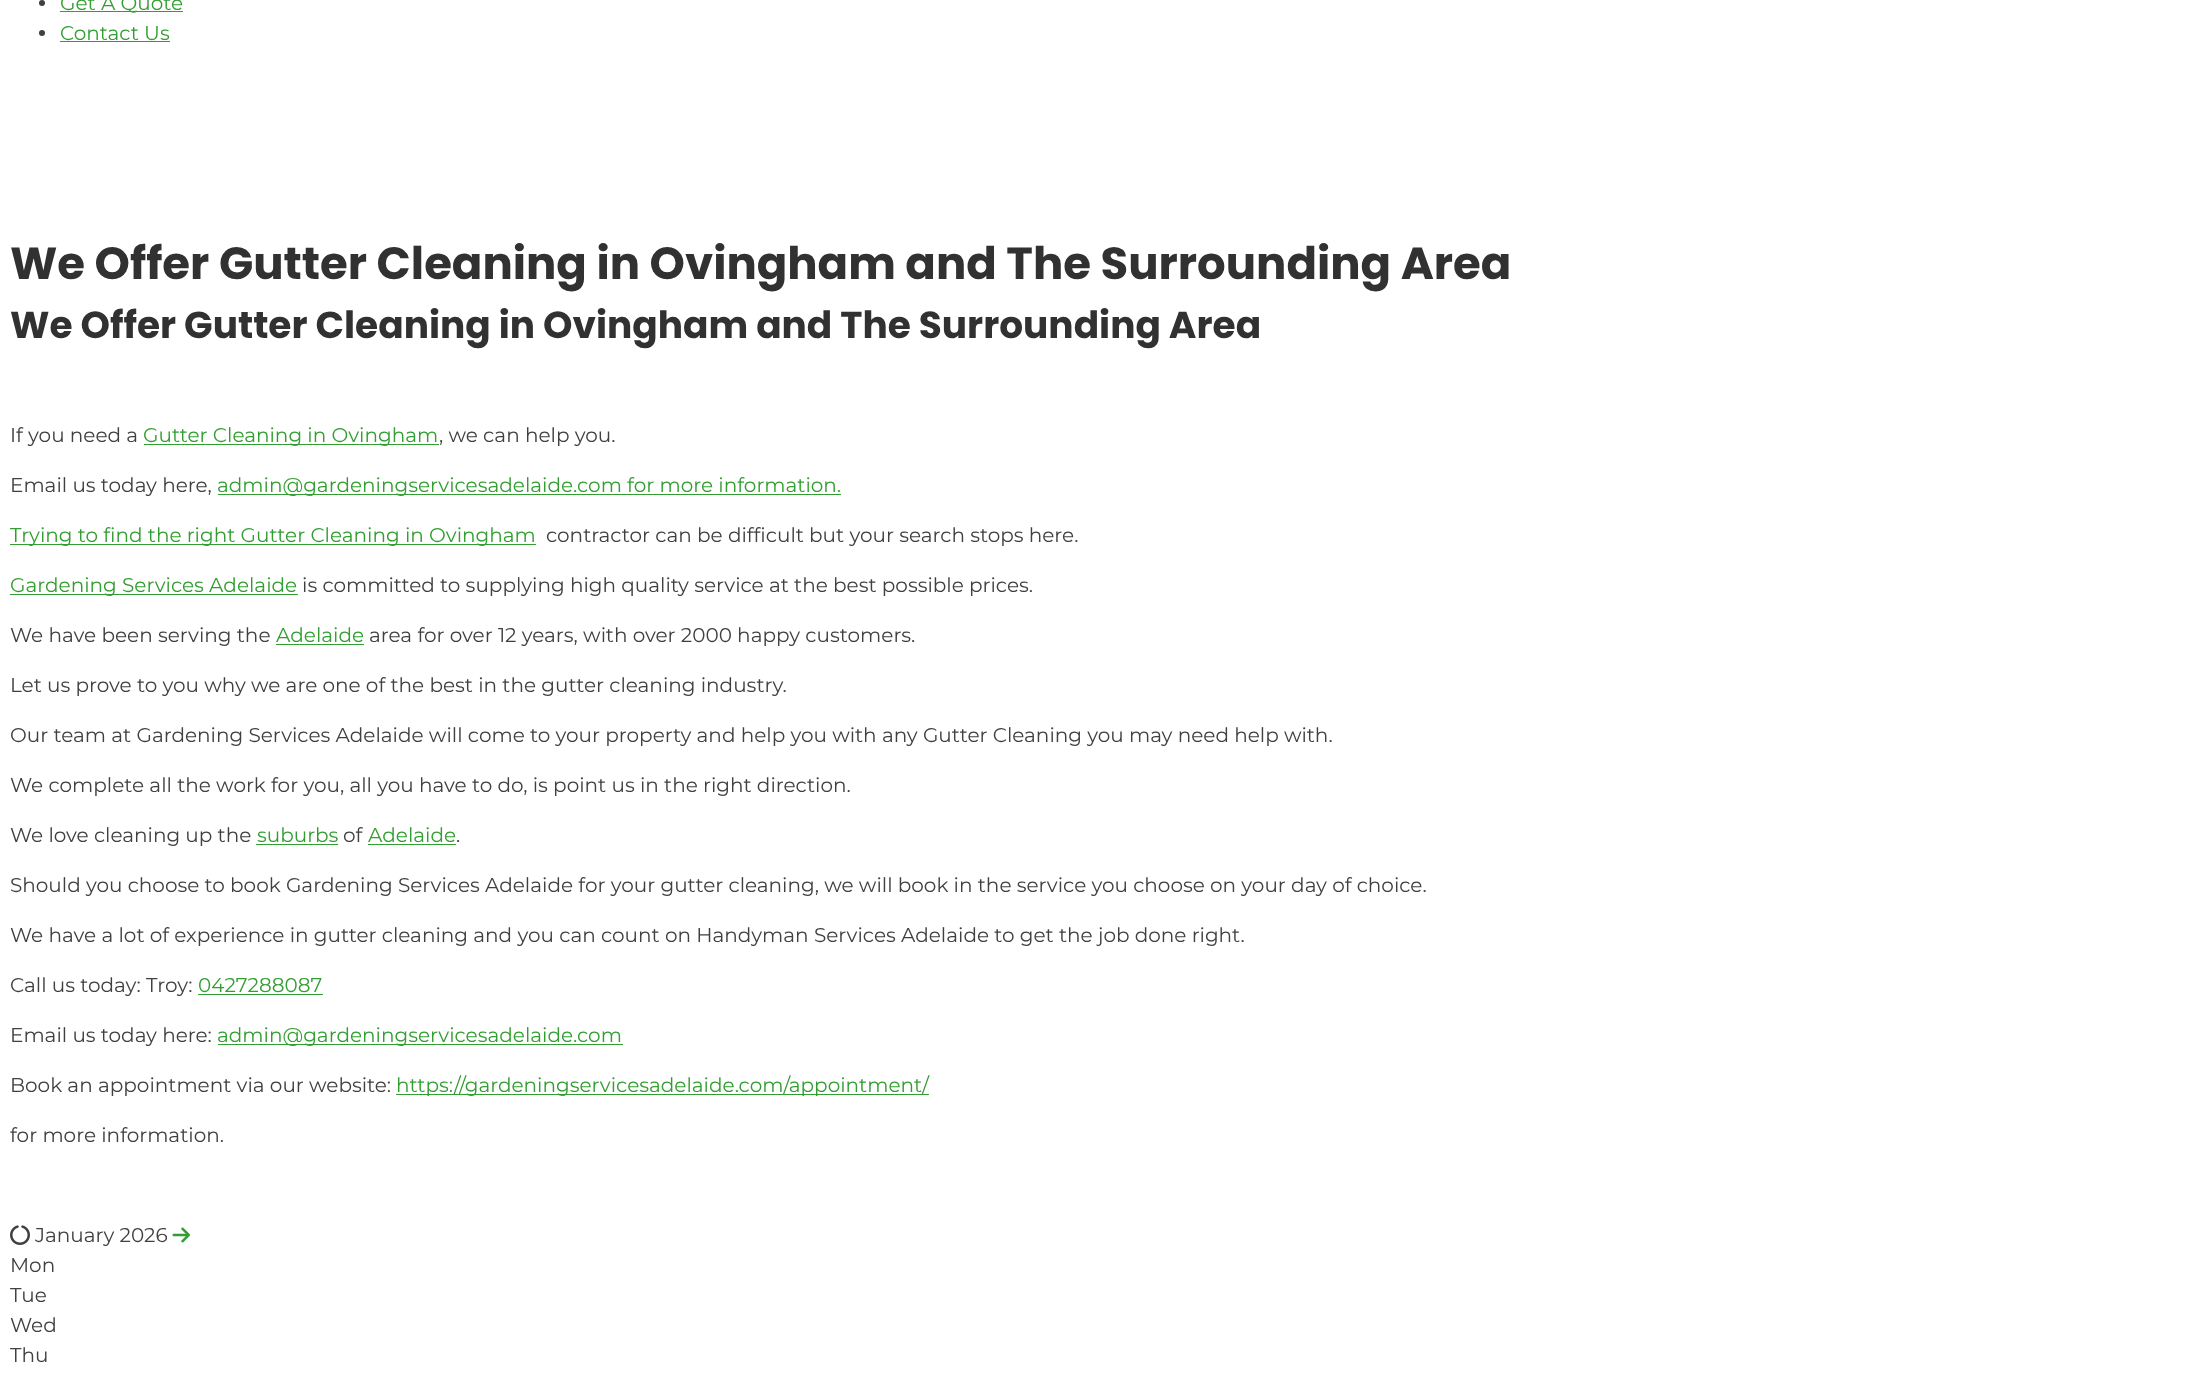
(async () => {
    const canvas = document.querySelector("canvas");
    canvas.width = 2203;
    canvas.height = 1381;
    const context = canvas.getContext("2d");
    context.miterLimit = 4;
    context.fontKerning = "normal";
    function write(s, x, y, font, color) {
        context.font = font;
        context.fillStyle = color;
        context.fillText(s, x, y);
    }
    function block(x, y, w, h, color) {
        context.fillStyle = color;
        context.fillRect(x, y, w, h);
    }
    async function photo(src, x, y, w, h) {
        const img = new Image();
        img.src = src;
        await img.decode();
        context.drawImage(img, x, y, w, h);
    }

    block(0, 0, 2203, 1381, "rgb(255, 255, 255)");
    context.fillStyle = "rgb(64, 64, 64)";
    context.beginPath();
    context.arc(42, 3, 3, 0, Math.PI * 2);
    context.fill();
    block(60, 11, 123, 1, "rgb(50, 158, 49)");
    write("Get A Quote", 60, 10, "20px Montserrat", "rgb(50, 158, 49)");
    context.fillStyle = "rgb(64, 64, 64)";
    context.beginPath();
    context.arc(42, 33, 3, 0, Math.PI * 2);
    context.fill();
    write("Contact Us", 60, 40, "20px Montserrat", "rgb(50, 158, 49)");
    block(60, 41, 110, 1, "rgb(50, 158, 49)");
    write("We Offer Gutter Cleaning in Ovingham and The Surrounding Area", 10, 279, "bold 45px Poppins", "rgb(49, 49, 49)");
    write("We Offer Gutter Cleaning in Ovingham and The Surrounding Area", 10, 338, "bold 37.5px Poppins", "rgb(49, 49, 49)");
    write("If you need a", 10, 442, "20px Montserrat", "rgb(64, 64, 64)");
    block(144, 444, 295, 1, "rgb(50, 158, 49)");
    write("Gutter Cleaning in Ovingham", 143, 442, "20px Montserrat", "rgb(50, 158, 49)");
    write(", we can help you.", 439, 442, "20px Montserrat", "rgb(64, 64, 64)");
    write("Email us today here,", 10, 492, "20px Montserrat", "rgb(64, 64, 64)");
    block(218, 494, 623, 1, "rgb(50, 158, 49)");
    write("admin@gardeningservicesadelaide.com for more information.", 217, 492, "20px Montserrat", "rgb(50, 158, 49)");
    block(10, 544, 526, 1, "rgb(50, 158, 49)");
    write("Trying to find the right Gutter Cleaning in Ovingham", 10, 542, "20px Montserrat", "rgb(50, 158, 49)");
    write("contractor can be difficult but your search stops here.", 546, 542, "20px Montserrat", "rgb(64, 64, 64)");
    block(10, 594, 288, 1, "rgb(50, 158, 49)");
    write("Gardening Services Adelaide", 10, 592, "20px Montserrat", "rgb(50, 158, 49)");
    write("is committed to supplying high quality service at the best possible prices.", 302, 592, "20px Montserrat", "rgb(64, 64, 64)");
    write("We have been serving the", 10, 642, "20px Montserrat", "rgb(64, 64, 64)");
    write("Adelaide", 276, 642, "20px Montserrat", "rgb(50, 158, 49)");
    block(276, 644, 88, 1, "rgb(50, 158, 49)");
    write("area for over 12 years, with over 2000 happy customers.", 369, 642, "20px Montserrat", "rgb(64, 64, 64)");
    write("Let us prove to you why we are one of the best in the gutter cleaning industry.", 10, 692, "20px Montserrat", "rgb(64, 64, 64)");
    write("Our team at Gardening Services Adelaide will come to your property and help you with any Gutter Cleaning you may need help with.", 10, 742, "20px Montserrat", "rgb(64, 64, 64)");
    write("We complete all the work for you, all you have to do, is point us in the right direction.", 10, 792, "20px Montserrat", "rgb(64, 64, 64)");
    write("We love cleaning up the", 10, 842, "20px Montserrat", "rgb(64, 64, 64)");
    write("suburbs", 257, 842, "20px Montserrat", "rgb(50, 158, 49)");
    block(256, 844, 82, 1, "rgb(50, 158, 49)");
    write("of", 343, 842, "20px Montserrat", "rgb(64, 64, 64)");
    write("Adelaide", 368, 842, "20px Montserrat", "rgb(50, 158, 49)");
    block(368, 844, 88, 1, "rgb(50, 158, 49)");
    write(".", 456, 842, "20px Montserrat", "rgb(64, 64, 64)");
    write("Should you choose to book Gardening Services Adelaide for your gutter cleaning, we will book in the service you choose on your day of choice.", 10, 892, "20px Montserrat", "rgb(64, 64, 64)");
    write("We have a lot of experience in gutter cleaning and you can count on Handyman Services Adelaide to get the job done right.", 10, 942, "20px Montserrat", "rgb(64, 64, 64)");
    write("Call us today: Troy:", 10, 992, "20px Montserrat", "rgb(64, 64, 64)");
    write("0427288087", 198, 992, "20px Montserrat", "rgb(50, 158, 49)");
    block(198, 994, 125, 1, "rgb(50, 158, 49)");
    write("Email us today here:", 10, 1042, "20px Montserrat", "rgb(64, 64, 64)");
    block(218, 1044, 405, 1, "rgb(50, 158, 49)");
    write("admin@gardeningservicesadelaide.com", 217, 1042, "20px Montserrat", "rgb(50, 158, 49)");
    write("Book an appointment via our website:", 10, 1092, "20px Montserrat", "rgb(64, 64, 64)");
    block(396, 1094, 533, 1, "rgb(50, 158, 49)");
    write("https://gardeningservicesadelaide.com/appointment/", 396, 1092, "20px Montserrat", "rgb(50, 158, 49)");
    write("for more information.", 10, 1142, "20px Montserrat", "rgb(64, 64, 64)");
    await photo("media/1.png", 10, 1225, 20, 20);
    write("January 2026", 35, 1242, "20px Montserrat", "rgb(64, 64, 64)");
    await photo("media/2.png", 172, 1227, 18, 16);
    write("Mon", 10, 1272, "20px Montserrat", "rgb(64, 64, 64)");
    write("Tue", 10, 1302, "20px Montserrat", "rgb(64, 64, 64)");
    write("Wed", 10, 1332, "20px Montserrat", "rgb(64, 64, 64)");
    write("Thu", 10, 1362, "20px Montserrat", "rgb(64, 64, 64)");
})();
